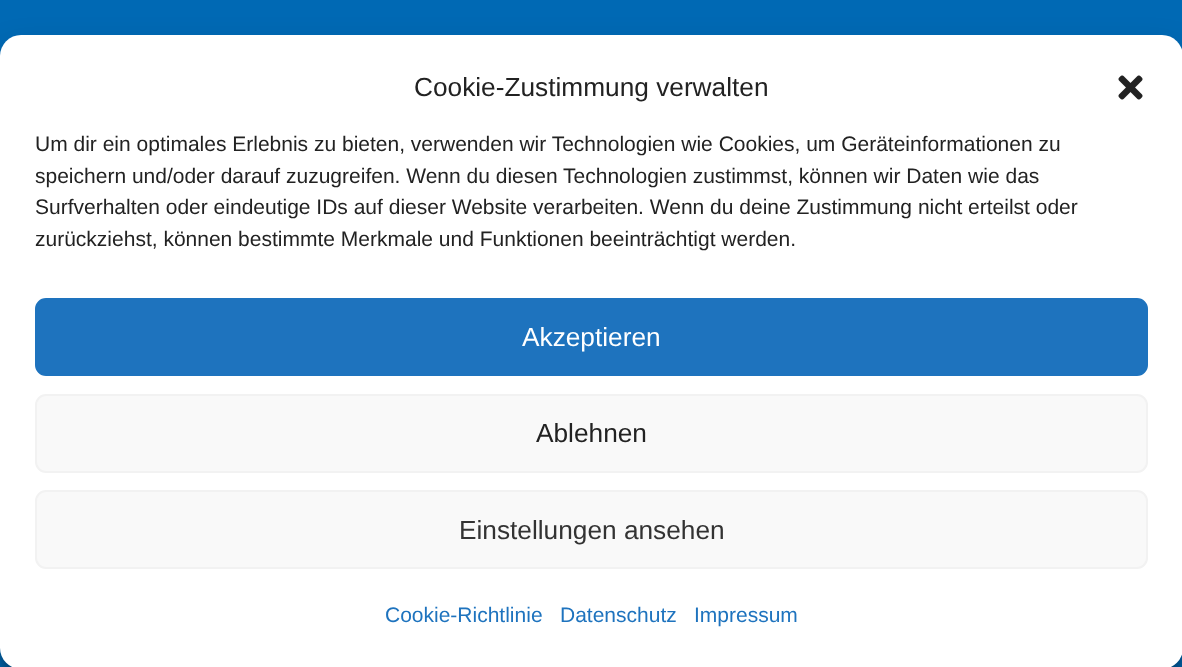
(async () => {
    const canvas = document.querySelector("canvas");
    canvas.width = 1182;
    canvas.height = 667;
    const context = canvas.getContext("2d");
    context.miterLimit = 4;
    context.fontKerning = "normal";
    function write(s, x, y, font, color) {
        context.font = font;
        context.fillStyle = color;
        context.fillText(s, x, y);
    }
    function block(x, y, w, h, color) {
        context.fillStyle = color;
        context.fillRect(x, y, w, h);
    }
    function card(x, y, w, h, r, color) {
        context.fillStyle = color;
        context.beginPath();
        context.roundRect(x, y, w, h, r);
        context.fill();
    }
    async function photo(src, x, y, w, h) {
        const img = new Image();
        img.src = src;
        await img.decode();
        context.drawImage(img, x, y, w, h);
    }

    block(0, 0, 1182, 667, "rgb(0, 105, 180)");
    context.fillStyle = "rgba(0, 0, 0, 0.23)";
    context.filter = "blur(5px)";
    context.beginPath();
    context.roundRect(0, 46, 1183, 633, 21);
    context.fill();
    context.filter = "none";
    context.fillStyle = "rgba(0, 0, 0, 0.19)";
    context.filter = "blur(17.5px)";
    context.beginPath();
    context.roundRect(0, 53, 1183, 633, 21);
    context.fill();
    context.filter = "none";
    card(0, 35, 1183, 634, 21, "rgb(255, 255, 255)");
    write("Cookie-Zustimmung verwalten", 414, 96, "26.25px Liberation Sans", "rgb(34, 34, 34)");
    await photo("media/1.png", 1118, 75, 25, 25);
    write("Um dir ein optimales Erlebnis zu bieten, verwenden wir Technologien wie Cookies, um Geräteinformationen zu", 35, 151, "21px Liberation Sans", "rgb(34, 34, 34)");
    write("speichern und/oder darauf zuzugreifen. Wenn du diesen Technologien zustimmst, können wir Daten wie das", 35, 183, "21px Liberation Sans", "rgb(34, 34, 34)");
    write("Surfverhalten oder eindeutige IDs auf dieser Website verarbeiten. Wenn du deine Zustimmung nicht erteilst oder", 35, 214, "21px Liberation Sans", "rgb(34, 34, 34)");
    write("zurückziehst, können bestimmte Merkmale und Funktionen beeinträchtigt werden.", 35, 246, "21px Liberation Sans", "rgb(34, 34, 34)");
    context.fillStyle = "rgb(30, 115, 190)";
    context.beginPath();
    context.roundRect(36, 299, 1111, 76, 10);
    context.fill();
    context.strokeStyle = "rgb(30, 115, 190)";
    context.lineWidth = 2;
    context.stroke();
    write("Akzeptieren", 522, 346, "26.25px Liberation Sans", "rgb(255, 255, 255)");
    context.fillStyle = "rgb(249, 249, 249)";
    context.beginPath();
    context.roundRect(36, 395, 1111, 77, 10);
    context.fill();
    context.strokeStyle = "rgb(242, 242, 242)";
    context.stroke();
    write("Ablehnen", 536, 442, "26.25px Liberation Sans", "rgb(34, 34, 34)");
    context.fillStyle = "rgb(249, 249, 249)";
    context.beginPath();
    context.roundRect(36, 491, 1111, 77, 10);
    context.fill();
    context.stroke();
    write("Einstellungen ansehen", 459, 539, "26.25px Liberation Sans", "rgb(51, 51, 51)");
    write("Cookie-Richtlinie", 385, 622, "21px Liberation Sans", "rgb(30, 115, 190)");
    write("Datenschutz", 560, 622, "21px Liberation Sans", "rgb(30, 115, 190)");
    write("Impressum", 694, 622, "21px Liberation Sans", "rgb(30, 115, 190)");
})();
